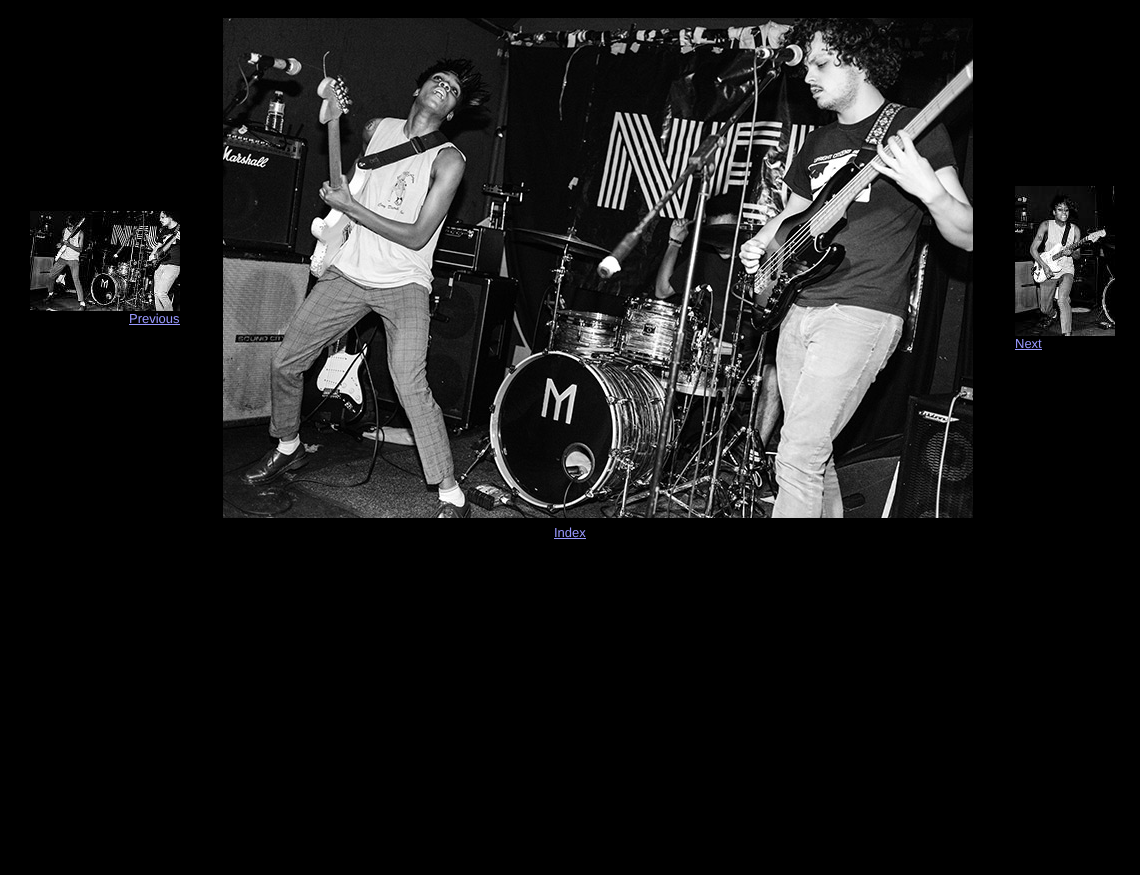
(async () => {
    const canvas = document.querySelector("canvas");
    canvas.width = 1140;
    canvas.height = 875;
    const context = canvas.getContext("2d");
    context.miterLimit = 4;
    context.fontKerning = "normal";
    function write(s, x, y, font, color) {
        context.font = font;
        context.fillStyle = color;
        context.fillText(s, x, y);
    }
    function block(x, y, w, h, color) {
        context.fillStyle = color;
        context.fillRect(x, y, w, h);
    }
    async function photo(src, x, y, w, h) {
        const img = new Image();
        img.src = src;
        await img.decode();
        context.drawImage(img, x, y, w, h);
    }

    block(0, 0, 1140, 875, "rgb(0, 0, 0)");
    await photo("media/1.png", 30, 211, 150, 100);
    write("Previous", 129, 323, "13px Liberation Sans", "rgb(153, 153, 255)");
    block(129, 324, 51, 1, "rgb(153, 153, 255)");
    await photo("media/2.png", 223, 18, 750, 500);
    await photo("media/3.png", 1015, 186, 100, 150);
    write("Next", 1015, 348, "13px Liberation Sans", "rgb(153, 153, 255)");
    block(1015, 349, 27, 1, "rgb(153, 153, 255)");
    write("Index", 554, 537, "13px Liberation Sans", "rgb(153, 153, 255)");
    block(554, 538, 32, 1, "rgb(153, 153, 255)");
})();
